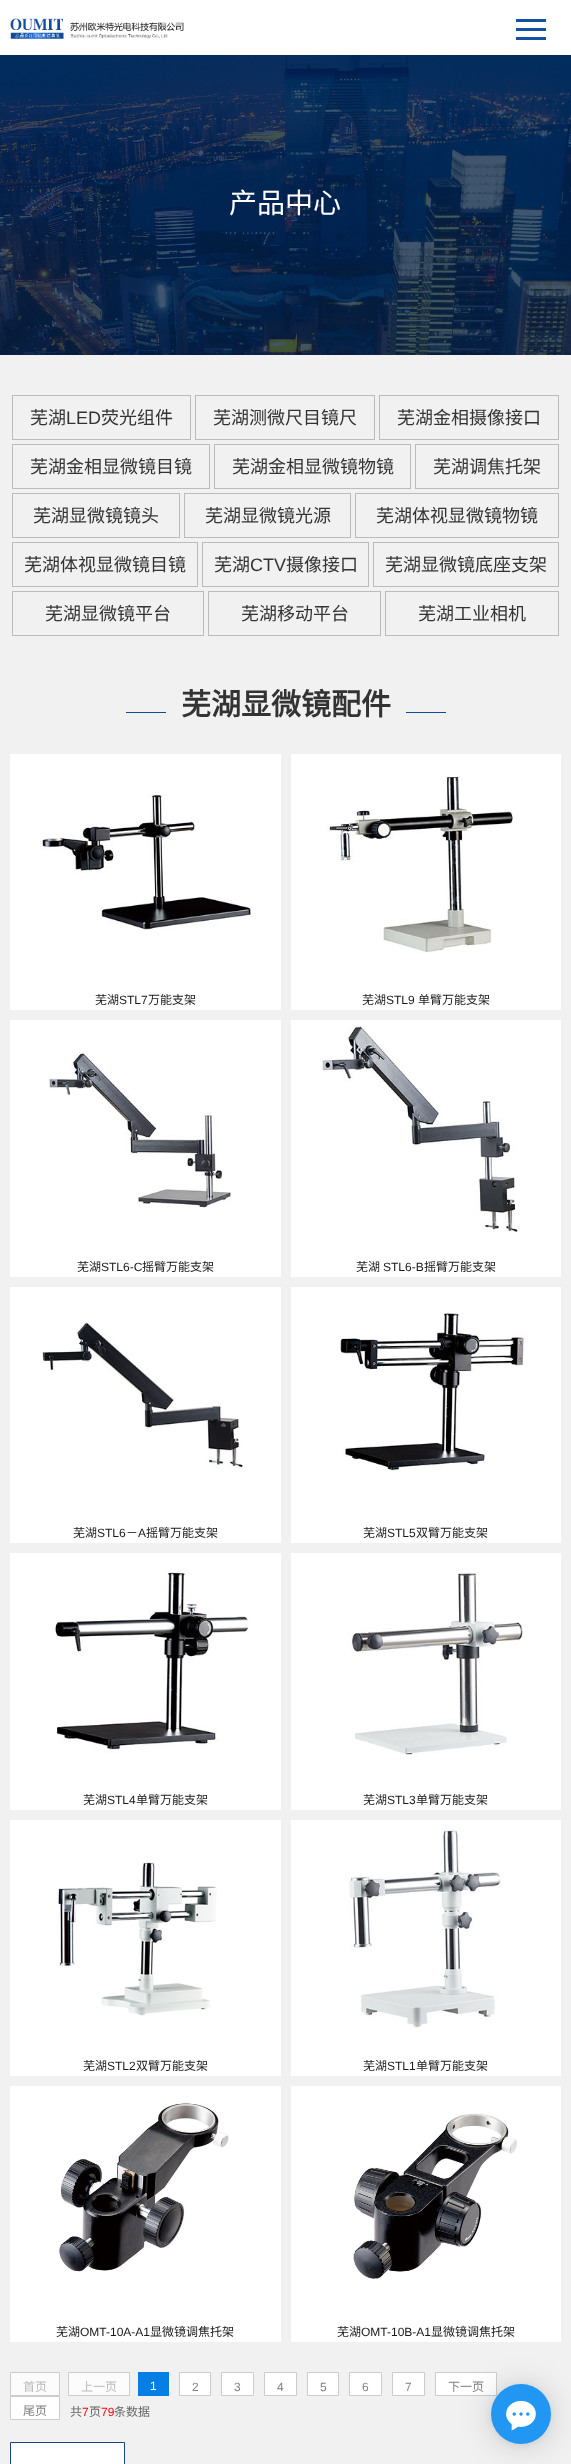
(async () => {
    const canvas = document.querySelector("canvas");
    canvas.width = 571;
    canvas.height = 2464;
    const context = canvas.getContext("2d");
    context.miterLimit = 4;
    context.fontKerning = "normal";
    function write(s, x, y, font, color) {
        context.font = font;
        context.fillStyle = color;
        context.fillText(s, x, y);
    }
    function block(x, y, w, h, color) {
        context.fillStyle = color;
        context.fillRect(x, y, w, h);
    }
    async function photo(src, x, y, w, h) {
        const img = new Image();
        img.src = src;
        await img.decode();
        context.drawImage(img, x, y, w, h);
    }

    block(0, 0, 571, 2464, "rgb(255, 255, 255)");
    await photo("media/1.png", 10, 18, 174, 21);
    block(516, 19, 30, 3, "rgb(20, 81, 163)");
    block(516, 28, 30, 3, "rgb(20, 81, 163)");
    block(516, 37, 30, 3, "rgb(20, 81, 163)");
    await photo("media/2.png", 0, 55, 571, 300);
    write("产品中心", 229, 213, "28px Noto Sans CJK SC", "rgb(255, 255, 255)");
    block(0, 355, 571, 2109, "rgb(241, 241, 241)");
    context.strokeStyle = "rgb(187, 187, 187)";
    context.strokeRect(12.5, 395.5, 178, 44);
    write("芜湖", 30, 424, "18px Noto Sans CJK SC", "rgb(51, 51, 51)");
    write("LED", 66, 424, "18px Liberation Sans", "rgb(51, 51, 51)");
    write("荧光组件", 101, 424, "18px Noto Sans CJK SC", "rgb(51, 51, 51)");
    context.strokeRect(195.5, 395.5, 179, 44);
    write("芜湖测微尺目镜尺", 213, 424, "18px Noto Sans CJK SC", "rgb(51, 51, 51)");
    context.strokeRect(379.5, 395.5, 179, 44);
    write("芜湖金相摄像接口", 397, 424, "18px Noto Sans CJK SC", "rgb(51, 51, 51)");
    context.strokeRect(12.5, 444.5, 197, 44);
    write("芜湖金相显微镜目镜", 30, 473, "18px Noto Sans CJK SC", "rgb(51, 51, 51)");
    context.strokeRect(214.5, 444.5, 196, 44);
    write("芜湖金相显微镜物镜", 232, 473, "18px Noto Sans CJK SC", "rgb(51, 51, 51)");
    context.strokeRect(415.5, 444.5, 143, 44);
    write("芜湖调焦托架", 433, 473, "18px Noto Sans CJK SC", "rgb(51, 51, 51)");
    context.strokeRect(12.5, 493.5, 167, 44);
    write("芜湖显微镜镜头", 33, 522, "18px Noto Sans CJK SC", "rgb(51, 51, 51)");
    context.strokeRect(184.5, 493.5, 166, 44);
    write("芜湖显微镜光源", 205, 522, "18px Noto Sans CJK SC", "rgb(51, 51, 51)");
    context.strokeRect(355.5, 493.5, 203, 44);
    write("芜湖体视显微镜物镜", 376, 522, "18px Noto Sans CJK SC", "rgb(51, 51, 51)");
    context.strokeRect(12.5, 542.5, 185, 44);
    write("芜湖体视显微镜目镜", 24, 571, "18px Noto Sans CJK SC", "rgb(51, 51, 51)");
    context.strokeRect(202.5, 542.5, 166, 44);
    write("芜湖", 214, 571, "18px Noto Sans CJK SC", "rgb(51, 51, 51)");
    write("CTV", 250, 571, "18px Liberation Sans", "rgb(51, 51, 51)");
    write("摄像接口", 286, 571, "18px Noto Sans CJK SC", "rgb(51, 51, 51)");
    context.strokeRect(373.5, 542.5, 185, 44);
    write("芜湖显微镜底座支架", 385, 571, "18px Noto Sans CJK SC", "rgb(51, 51, 51)");
    context.strokeRect(12.5, 591.5, 191, 44);
    write("芜湖显微镜平台", 45, 620, "18px Noto Sans CJK SC", "rgb(51, 51, 51)");
    context.strokeRect(208.5, 591.5, 172, 44);
    write("芜湖移动平台", 241, 620, "18px Noto Sans CJK SC", "rgb(51, 51, 51)");
    context.strokeRect(385.5, 591.5, 173, 44);
    write("芜湖工业相机", 418, 620, "18px Noto Sans CJK SC", "rgb(51, 51, 51)");
    block(126, 712, 40, 1, "rgb(18, 75, 152)");
    write("芜湖显微镜配件", 181, 715, "bold 30px Noto Sans CJK SC", "rgb(51, 51, 51)");
    block(406, 712, 40, 1, "rgb(18, 75, 152)");
    block(10, 754, 271, 256, "rgb(255, 255, 255)");
    await photo("media/3.png", 40, 794, 212, 137);
    write("芜湖", 95, 1004, "12px Noto Sans CJK SC", "rgb(25, 25, 25)");
    write("STL7", 119, 1004, "12px Liberation Sans", "rgb(25, 25, 25)");
    write("万能支架", 148, 1004, "12px Noto Sans CJK SC", "rgb(25, 25, 25)");
    block(291, 754, 270, 256, "rgb(255, 255, 255)");
    await photo("media/4.png", 326, 777, 187, 176);
    write("芜湖", 362, 1004, "12px Noto Sans CJK SC", "rgb(25, 25, 25)");
    write("STL9", 386, 1004, "12px Liberation Sans", "rgb(25, 25, 25)");
    write("单臂万能支架", 418, 1004, "12px Noto Sans CJK SC", "rgb(25, 25, 25)");
    block(10, 1020, 271, 257, "rgb(255, 255, 255)");
    await photo("media/5.png", 48, 1051, 183, 157);
    write("芜湖", 77, 1271, "12px Noto Sans CJK SC", "rgb(25, 25, 25)");
    write("STL6-C", 101, 1271, "12px Liberation Sans", "rgb(25, 25, 25)");
    write("摇臂万能支架", 142, 1271, "12px Noto Sans CJK SC", "rgb(25, 25, 25)");
    block(291, 1020, 270, 257, "rgb(255, 255, 255)");
    await photo("media/6.png", 320, 1026, 200, 206);
    write("芜湖", 356, 1271, "12px Noto Sans CJK SC", "rgb(25, 25, 25)");
    write("STL6-B", 383, 1271, "12px Liberation Sans", "rgb(25, 25, 25)");
    write("摇臂万能支架", 424, 1271, "12px Noto Sans CJK SC", "rgb(25, 25, 25)");
    block(10, 1287, 271, 256, "rgb(255, 255, 255)");
    await photo("media/7.png", 42, 1322, 204, 147);
    write("芜湖", 73, 1537, "12px Noto Sans CJK SC", "rgb(25, 25, 25)");
    write("STL6", 97, 1537, "12px Liberation Sans", "rgb(25, 25, 25)");
    write("－", 126, 1537, "12px Noto Sans CJK SC", "rgb(25, 25, 25)");
    write("A", 138, 1537, "12px Liberation Sans", "rgb(25, 25, 25)");
    write("摇臂万能支架", 146, 1537, "12px Noto Sans CJK SC", "rgb(25, 25, 25)");
    block(291, 1287, 270, 256, "rgb(255, 255, 255)");
    await photo("media/8.png", 340, 1311, 186, 160);
    write("芜湖", 363, 1537, "12px Noto Sans CJK SC", "rgb(25, 25, 25)");
    write("STL5", 387, 1537, "12px Liberation Sans", "rgb(25, 25, 25)");
    write("双臂万能支架", 416, 1537, "12px Noto Sans CJK SC", "rgb(25, 25, 25)");
    block(10, 1553, 271, 257, "rgb(255, 255, 255)");
    await photo("media/9.png", 55, 1570, 194, 183);
    write("芜湖", 83, 1804, "12px Noto Sans CJK SC", "rgb(25, 25, 25)");
    write("STL4", 107, 1804, "12px Liberation Sans", "rgb(25, 25, 25)");
    write("单臂万能支架", 136, 1804, "12px Noto Sans CJK SC", "rgb(25, 25, 25)");
    block(291, 1553, 270, 257, "rgb(255, 255, 255)");
    await photo("media/10.png", 349, 1570, 174, 185);
    write("芜湖", 363, 1804, "12px Noto Sans CJK SC", "rgb(25, 25, 25)");
    write("STL3", 387, 1804, "12px Liberation Sans", "rgb(25, 25, 25)");
    write("单臂万能支架", 416, 1804, "12px Noto Sans CJK SC", "rgb(25, 25, 25)");
    block(10, 1820, 271, 256, "rgb(255, 255, 255)");
    await photo("media/11.png", 57, 1862, 160, 154);
    write("芜湖", 83, 2070, "12px Noto Sans CJK SC", "rgb(25, 25, 25)");
    write("STL2", 107, 2070, "12px Liberation Sans", "rgb(25, 25, 25)");
    write("双臂万能支架", 136, 2070, "12px Noto Sans CJK SC", "rgb(25, 25, 25)");
    block(291, 1820, 270, 256, "rgb(255, 255, 255)");
    await photo("media/12.png", 349, 1830, 154, 199);
    write("芜湖", 363, 2070, "12px Noto Sans CJK SC", "rgb(25, 25, 25)");
    write("STL1", 387, 2070, "12px Liberation Sans", "rgb(25, 25, 25)");
    write("单臂万能支架", 416, 2070, "12px Noto Sans CJK SC", "rgb(25, 25, 25)");
    block(10, 2086, 271, 256, "rgb(255, 255, 255)");
    await photo("media/13.png", 58, 2103, 171, 169);
    write("芜湖", 56, 2336, "12px Noto Sans CJK SC", "rgb(25, 25, 25)");
    write("OMT-10A-A1", 80, 2336, "12px Liberation Sans", "rgb(25, 25, 25)");
    write("显微镜调焦托架", 150, 2336, "12px Noto Sans CJK SC", "rgb(25, 25, 25)");
    block(291, 2086, 270, 256, "rgb(255, 255, 255)");
    await photo("media/14.png", 352, 2113, 165, 167);
    write("芜湖", 337, 2336, "12px Noto Sans CJK SC", "rgb(25, 25, 25)");
    write("OMT-10B-A1", 361, 2336, "12px Liberation Sans", "rgb(25, 25, 25)");
    write("显微镜调焦托架", 431, 2336, "12px Noto Sans CJK SC", "rgb(25, 25, 25)");
    context.fillStyle = "rgb(252, 252, 252)";
    context.beginPath();
    context.rect(10.5, 2372.5, 49, 23);
    context.fill();
    context.strokeStyle = "rgb(204, 204, 204)";
    context.stroke();
    write("首页", 23, 2391, "12px Noto Sans CJK SC", "rgb(187, 187, 187)");
    context.fillStyle = "rgb(252, 252, 252)";
    context.beginPath();
    context.rect(68.5, 2372.5, 61, 23);
    context.fill();
    context.stroke();
    write("上一页", 81, 2391, "12px Noto Sans CJK SC", "rgb(187, 187, 187)");
    block(138, 2372, 31, 24, "rgb(7, 126, 227)");
    write("1", 150, 2390, "12px Liberation Sans", "rgb(255, 255, 255)");
    context.beginPath();
    context.rect(179.5, 2372.5, 31, 23);
    context.fill();
    context.stroke();
    write("2", 192, 2391, "12px Liberation Sans", "rgb(128, 128, 128)");
    context.fillStyle = "rgb(255, 255, 255)";
    context.beginPath();
    context.rect(221.5, 2372.5, 32, 23);
    context.fill();
    context.stroke();
    write("3", 234, 2391, "12px Liberation Sans", "rgb(128, 128, 128)");
    context.fillStyle = "rgb(255, 255, 255)";
    context.beginPath();
    context.rect(264.5, 2372.5, 32, 23);
    context.fill();
    context.stroke();
    write("4", 277, 2391, "12px Liberation Sans", "rgb(128, 128, 128)");
    context.fillStyle = "rgb(255, 255, 255)";
    context.beginPath();
    context.rect(307.5, 2372.5, 31, 23);
    context.fill();
    context.stroke();
    write("5", 320, 2391, "12px Liberation Sans", "rgb(128, 128, 128)");
    context.fillStyle = "rgb(255, 255, 255)";
    context.beginPath();
    context.rect(349.5, 2372.5, 32, 23);
    context.fill();
    context.stroke();
    write("6", 362, 2391, "12px Liberation Sans", "rgb(128, 128, 128)");
    context.fillStyle = "rgb(255, 255, 255)";
    context.beginPath();
    context.rect(392.5, 2372.5, 32, 23);
    context.fill();
    context.stroke();
    write("7", 405, 2391, "12px Liberation Sans", "rgb(128, 128, 128)");
    context.fillStyle = "rgb(255, 255, 255)";
    context.beginPath();
    context.rect(435.5, 2372.5, 61, 23);
    context.fill();
    context.stroke();
    write("下一页", 448, 2391, "12px Noto Sans CJK SC", "rgb(128, 128, 128)");
    context.fillStyle = "rgb(255, 255, 255)";
    context.beginPath();
    context.rect(10.5, 2396.5, 49, 23);
    context.fill();
    context.stroke();
    write("尾页", 23, 2415, "12px Noto Sans CJK SC", "rgb(128, 128, 128)");
    write("共", 70, 2416, "12px Noto Sans CJK SC", "rgb(102, 102, 102)");
    write("7", 82, 2416, "12px Liberation Sans", "rgb(255, 0, 0)");
    write("页", 89, 2416, "12px Noto Sans CJK SC", "rgb(102, 102, 102)");
    write("79", 101, 2416, "12px Liberation Sans", "rgb(255, 0, 0)");
    write("条数据", 114, 2416, "12px Noto Sans CJK SC", "rgb(102, 102, 102)");
    context.fillStyle = "rgb(255, 255, 255)";
    context.beginPath();
    context.rect(10.5, 2442.5, 114, 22);
    context.fill();
    context.strokeStyle = "rgb(28, 69, 135)";
    context.stroke();
    context.fillStyle = "rgba(0, 0, 0, 0.16)";
    context.filter = "blur(16px)";
    context.beginPath();
    context.roundRect(491, 2386, 60, 60, 30);
    context.fill();
    context.filter = "none";
    context.fillStyle = "rgba(0, 0, 0, 0.06)";
    context.filter = "blur(3px)";
    context.beginPath();
    context.roundRect(491, 2385, 60, 60, 30);
    context.fill();
    context.filter = "none";
    context.fillStyle = "rgb(33, 150, 243)";
    context.beginPath();
    context.arc(521, 2414, 30, 0, Math.PI * 2);
    context.fill();
    await photo("media/15.png", 506, 2400, 30, 31);
})();
